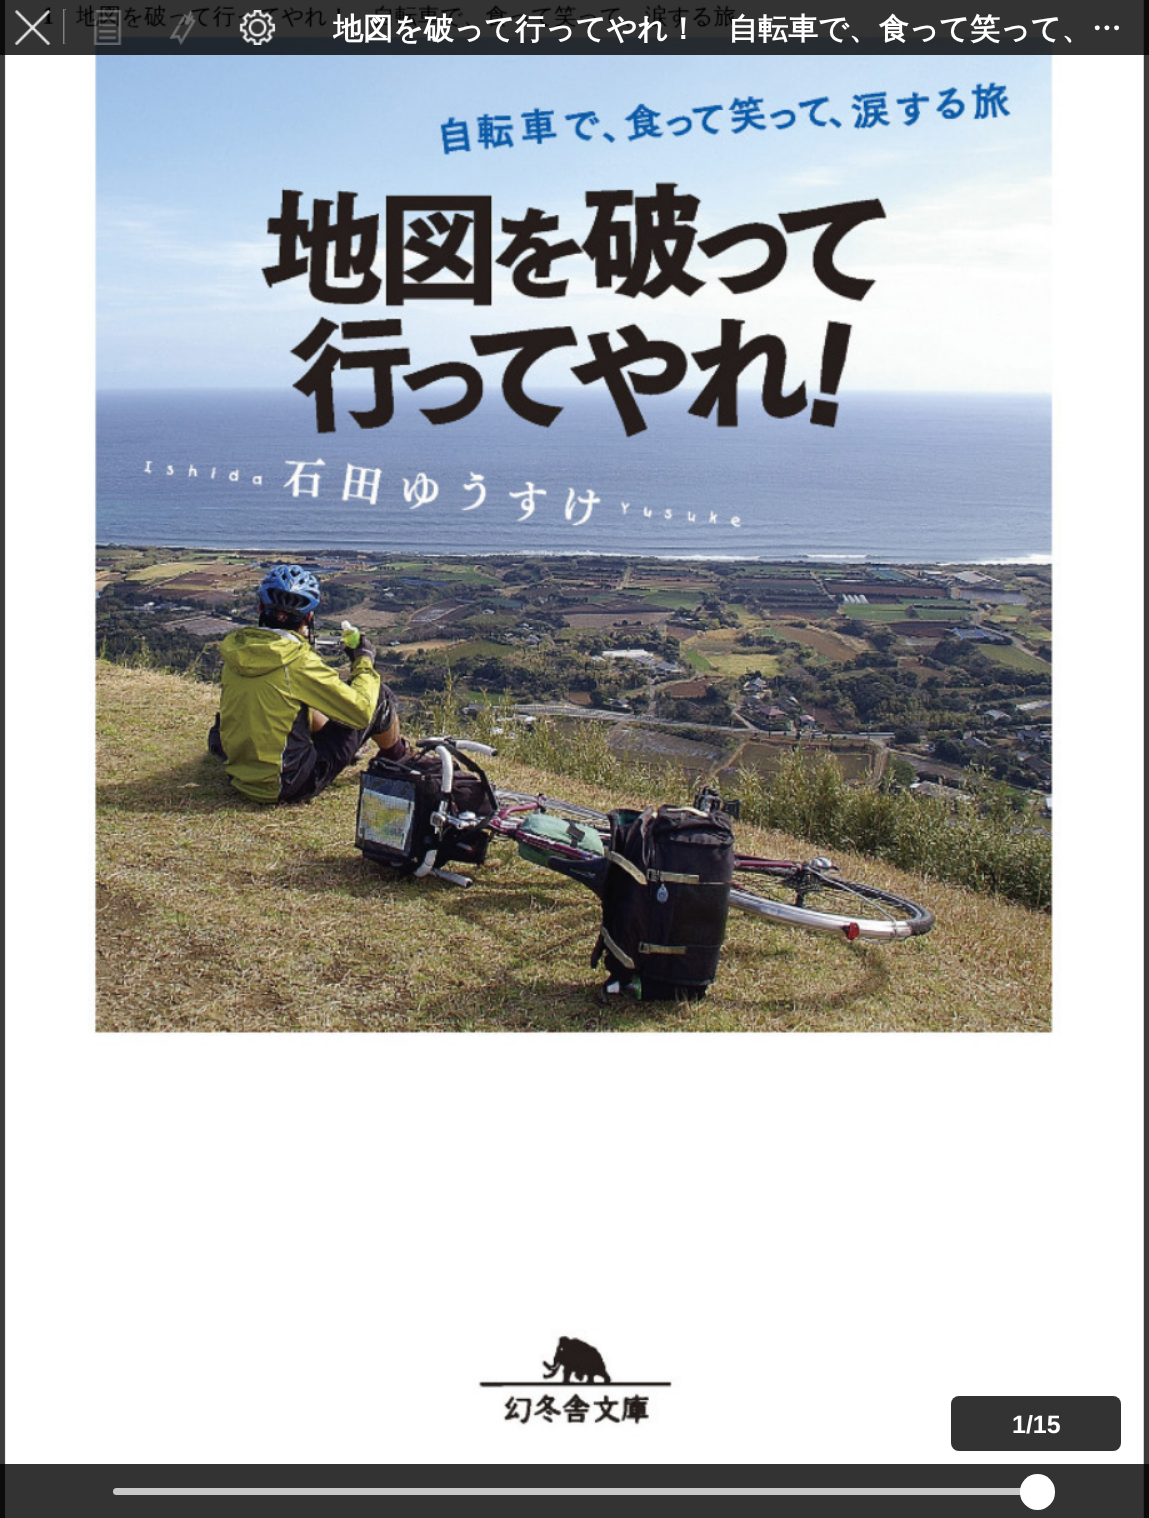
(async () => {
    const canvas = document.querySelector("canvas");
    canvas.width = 1149;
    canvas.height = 1518;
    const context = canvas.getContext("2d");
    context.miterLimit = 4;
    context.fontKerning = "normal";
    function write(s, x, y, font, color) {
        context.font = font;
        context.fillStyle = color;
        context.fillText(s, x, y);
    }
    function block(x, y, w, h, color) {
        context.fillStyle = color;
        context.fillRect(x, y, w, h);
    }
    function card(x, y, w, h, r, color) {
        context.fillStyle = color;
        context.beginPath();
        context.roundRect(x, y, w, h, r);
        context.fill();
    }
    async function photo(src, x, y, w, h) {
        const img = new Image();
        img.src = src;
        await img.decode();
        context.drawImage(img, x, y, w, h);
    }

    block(0, 0, 1149, 1518, "rgb(59, 59, 59)");
    await photo("media/1.png", 4, 0, 1140, 1518);
    block(0, 0, 1149, 55, "rgba(0, 0, 0, 0.8)");
    await photo("media/2.png", 14, 10, 37, 35);
    block(63, 9, 3, 1, "rgb(128, 128, 128)");
    block(64, 9, 1, 35, "rgb(85, 85, 85)");
    block(63, 43, 3, 1, "rgb(85, 85, 85)");
    block(63, 9, 1, 35, "rgb(128, 128, 128)");
    await photo("media/3.png", 93, 10, 29, 35);
    await photo("media/4.png", 169, 10, 28, 35);
    await photo("media/5.png", 239, 10, 37, 35);
    context.save();
    context.beginPath();
    context.rect(333, 1, 810, 55);
    context.clip();
    write("地図を破って行ってやれ！　自転車で、食って笑って、…", 333, 39, "bold 30px WenQuanYi Zen Hei", "rgb(255, 255, 255)");
    context.restore();
    block(0, 1464, 1149, 54, "rgba(0, 0, 0, 0.8)");
    card(113, 1488, 925, 7, 3.5, "rgb(201, 201, 202)");
    card(1020, 1474, 35, 36, 17.5, "rgb(255, 255, 255)");
    card(951, 1396, 170, 55, 8, "rgb(51, 51, 51)");
    write("1/15", 1012, 1433, "bold 25px Liberation Sans", "rgb(255, 255, 255)");
})();
